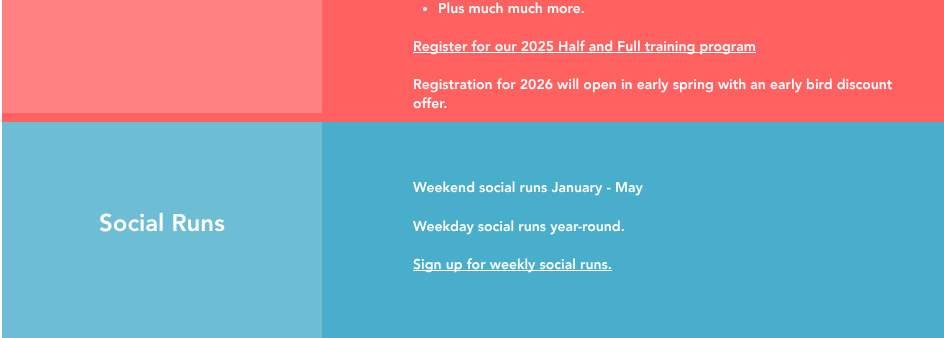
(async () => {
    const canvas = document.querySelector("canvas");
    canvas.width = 944;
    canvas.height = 338;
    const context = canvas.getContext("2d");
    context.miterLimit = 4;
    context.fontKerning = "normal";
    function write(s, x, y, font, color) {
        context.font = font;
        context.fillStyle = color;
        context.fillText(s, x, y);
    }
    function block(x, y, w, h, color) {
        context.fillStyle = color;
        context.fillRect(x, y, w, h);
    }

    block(0, 0, 944, 338, "rgb(255, 255, 255)");
    block(2, 0, 942, 122, "rgb(255, 97, 97)");
    block(2, 0, 320, 113, "rgb(255, 129, 129)");
    context.fillStyle = "rgb(255, 255, 255)";
    context.beginPath();
    context.arc(425, 9, 2, 0, Math.PI * 2);
    context.fill();
    write("Plus much much more.", 438, 13, "900 14px 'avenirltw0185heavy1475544'", "rgb(255, 255, 255)");
    block(413, 52, 343, 1, "rgb(255, 255, 255)");
    write("Register for our 2025 Half and Full training program", 413, 51, "900 14px 'avenirltw0185heavy1475544'", "rgb(255, 255, 255)");
    write("Registration for 2026 will open in early spring with an early bird discount", 413, 89, "900 14px 'avenirltw0185heavy1475544'", "rgb(255, 255, 255)");
    write("offer.", 413, 108, "900 14px 'avenirltw0185heavy1475544'", "rgb(255, 255, 255)");
    block(322, 122, 622, 216, "rgb(72, 174, 203)");
    block(2, 122, 320, 216, "rgb(109, 190, 213)");
    write("Social Runs", 99, 231, "900 24px 'avenirltw0185heavy1475544'", "rgb(255, 255, 255)");
    write("Weekend social runs January - May", 413, 192, "900 14px 'avenirltw0185heavy1475544'", "rgb(255, 255, 255)");
    write("Weekday social runs year-round.", 413, 231, "900 14px 'avenirltw0185heavy1475544'", "rgb(255, 255, 255)");
    block(413, 270, 199, 1, "rgb(255, 255, 255)");
    write("Sign up for weekly social runs.", 413, 269, "900 14px 'avenirltw0185heavy1475544'", "rgb(255, 255, 255)");
})();
